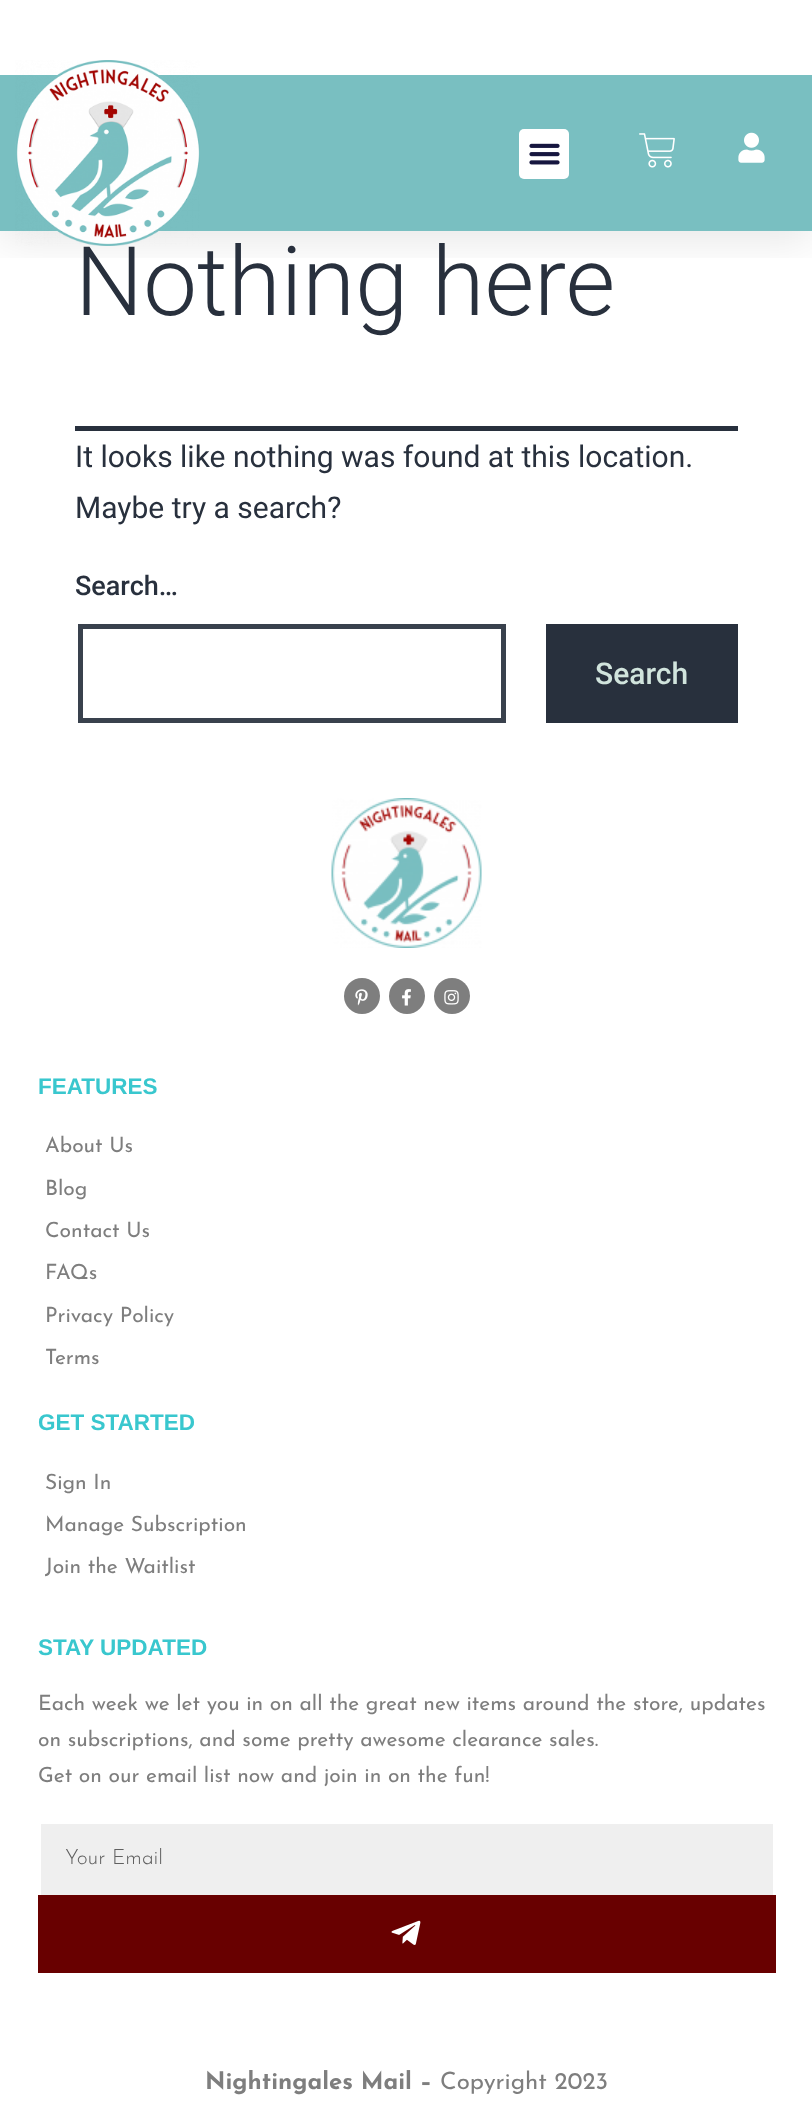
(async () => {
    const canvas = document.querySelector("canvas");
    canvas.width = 812;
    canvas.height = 2117;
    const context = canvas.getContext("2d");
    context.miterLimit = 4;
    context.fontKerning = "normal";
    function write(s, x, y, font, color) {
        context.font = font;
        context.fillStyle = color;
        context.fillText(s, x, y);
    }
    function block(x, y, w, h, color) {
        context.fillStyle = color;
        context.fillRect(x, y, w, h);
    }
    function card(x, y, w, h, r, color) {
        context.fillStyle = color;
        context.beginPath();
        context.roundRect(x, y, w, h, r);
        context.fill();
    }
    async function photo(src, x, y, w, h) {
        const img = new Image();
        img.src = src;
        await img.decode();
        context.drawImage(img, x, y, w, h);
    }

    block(0, 0, 812, 2117, "rgb(255, 255, 255)");
    context.save();
    context.beginPath();
    context.rect(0, 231, 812, 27);
    context.clip();
    context.fillStyle = "rgba(0, 0, 0, 0.1)";
    context.filter = "blur(22.5px)";
    context.beginPath();
    context.rect(0, 8, 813, 231);
    context.fill();
    context.filter = "none";
    context.restore();
    block(0, 75, 812, 156, "rgb(121, 191, 193)");
    write("Nothing here", 75, 315, "300 96px Roboto", "rgb(40, 48, 61)");
    await photo("media/1.png", 15, 60, 185, 186);
    card(519, 129, 50, 50, 5, "rgb(255, 255, 255)");
    await photo("media/2.png", 529, 143, 31, 22);
    await photo("media/3.png", 639, 133, 36, 35);
    await photo("media/4.png", 738, 132, 27, 31);
    block(75, 426, 663, 5, "rgb(40, 48, 61)");
    write("It looks like nothing was found at this location.", 75, 467, "30px Roboto", "rgb(40, 48, 61)");
    write("Maybe try a search?", 75, 518, "30px Roboto", "rgb(40, 48, 61)");
    write("Search…", 75, 595, "500 27px Roboto", "rgb(40, 48, 61)");
    context.strokeStyle = "rgb(57, 65, 77)";
    context.lineWidth = 5;
    context.strokeRect(80.5, 626.5, 423, 94);
    block(546, 624, 192, 99, "rgb(40, 48, 61)");
    write("Search", 595, 684, "500 30px Roboto", "rgb(209, 228, 221)");
    await photo("media/5.png", 331, 798, 151, 150);
    context.fillStyle = "rgb(126, 126, 126)";
    context.beginPath();
    context.arc(362, 996, 18, 0, Math.PI * 2);
    context.fill();
    await photo("media/6.png", 355, 989, 13, 17);
    context.beginPath();
    context.arc(407, 996, 18, 0, Math.PI * 2);
    context.fill();
    await photo("media/7.png", 402, 989, 9, 17);
    context.beginPath();
    context.arc(452, 996, 18, 0, Math.PI * 2);
    context.fill();
    await photo("media/8.png", 444, 990, 15, 15);
    write("FEATURES", 38, 1094, "bold 22.5px Liberation Sans", "rgb(57, 199, 206)");
    write("About Us", 45, 1152, "21px Josefin Sans", "rgb(126, 126, 126)");
    write("Blog", 45, 1195, "21px Josefin Sans", "rgb(126, 126, 126)");
    write("Contact Us", 45, 1237, "21px Josefin Sans", "rgb(126, 126, 126)");
    write("FAQs", 45, 1279, "21px Josefin Sans", "rgb(126, 126, 126)");
    write("Privacy Policy", 45, 1322, "21px Josefin Sans", "rgb(126, 126, 126)");
    write("Terms", 45, 1364, "21px Josefin Sans", "rgb(126, 126, 126)");
    write("GET STARTED", 38, 1430, "bold 22.5px Liberation Sans", "rgb(57, 199, 206)");
    write("Sign In", 45, 1489, "21px Josefin Sans", "rgb(126, 126, 126)");
    write("Manage Subscription", 45, 1531, "21px Josefin Sans", "rgb(126, 126, 126)");
    write("Join the Waitlist", 45, 1573, "21px Josefin Sans", "rgb(126, 126, 126)");
    write("STAY UPDATED", 38, 1655, "bold 22.5px Liberation Sans", "rgb(57, 199, 206)");
    write("Each week we let you in on all the great new items around the store, updates", 38, 1710, "21px Josefin Sans", "rgb(126, 126, 126)");
    write("on subscriptions, and some pretty awesome clearance sales.", 38, 1746, "21px Josefin Sans", "rgb(126, 126, 126)");
    write("Get on our email list now and join in on the fun!", 38, 1782, "21px Josefin Sans", "rgb(126, 126, 126)");
    block(41, 1824, 732, 71, "rgb(239, 239, 239)");
    write("Your Email", 65, 1864, "300 21px Josefin Sans", "rgb(96, 96, 96)");
    block(38, 1895, 738, 78, "rgb(104, 0, 0)");
    await photo("media/9.png", 391, 1920, 30, 25);
    write("Nightingales Mail –", 205, 2089, "bold 24px Josefin Sans", "rgb(126, 126, 126)");
    write("Copyright 2023", 440, 2089, "24px Josefin Sans", "rgb(126, 126, 126)");
})();
